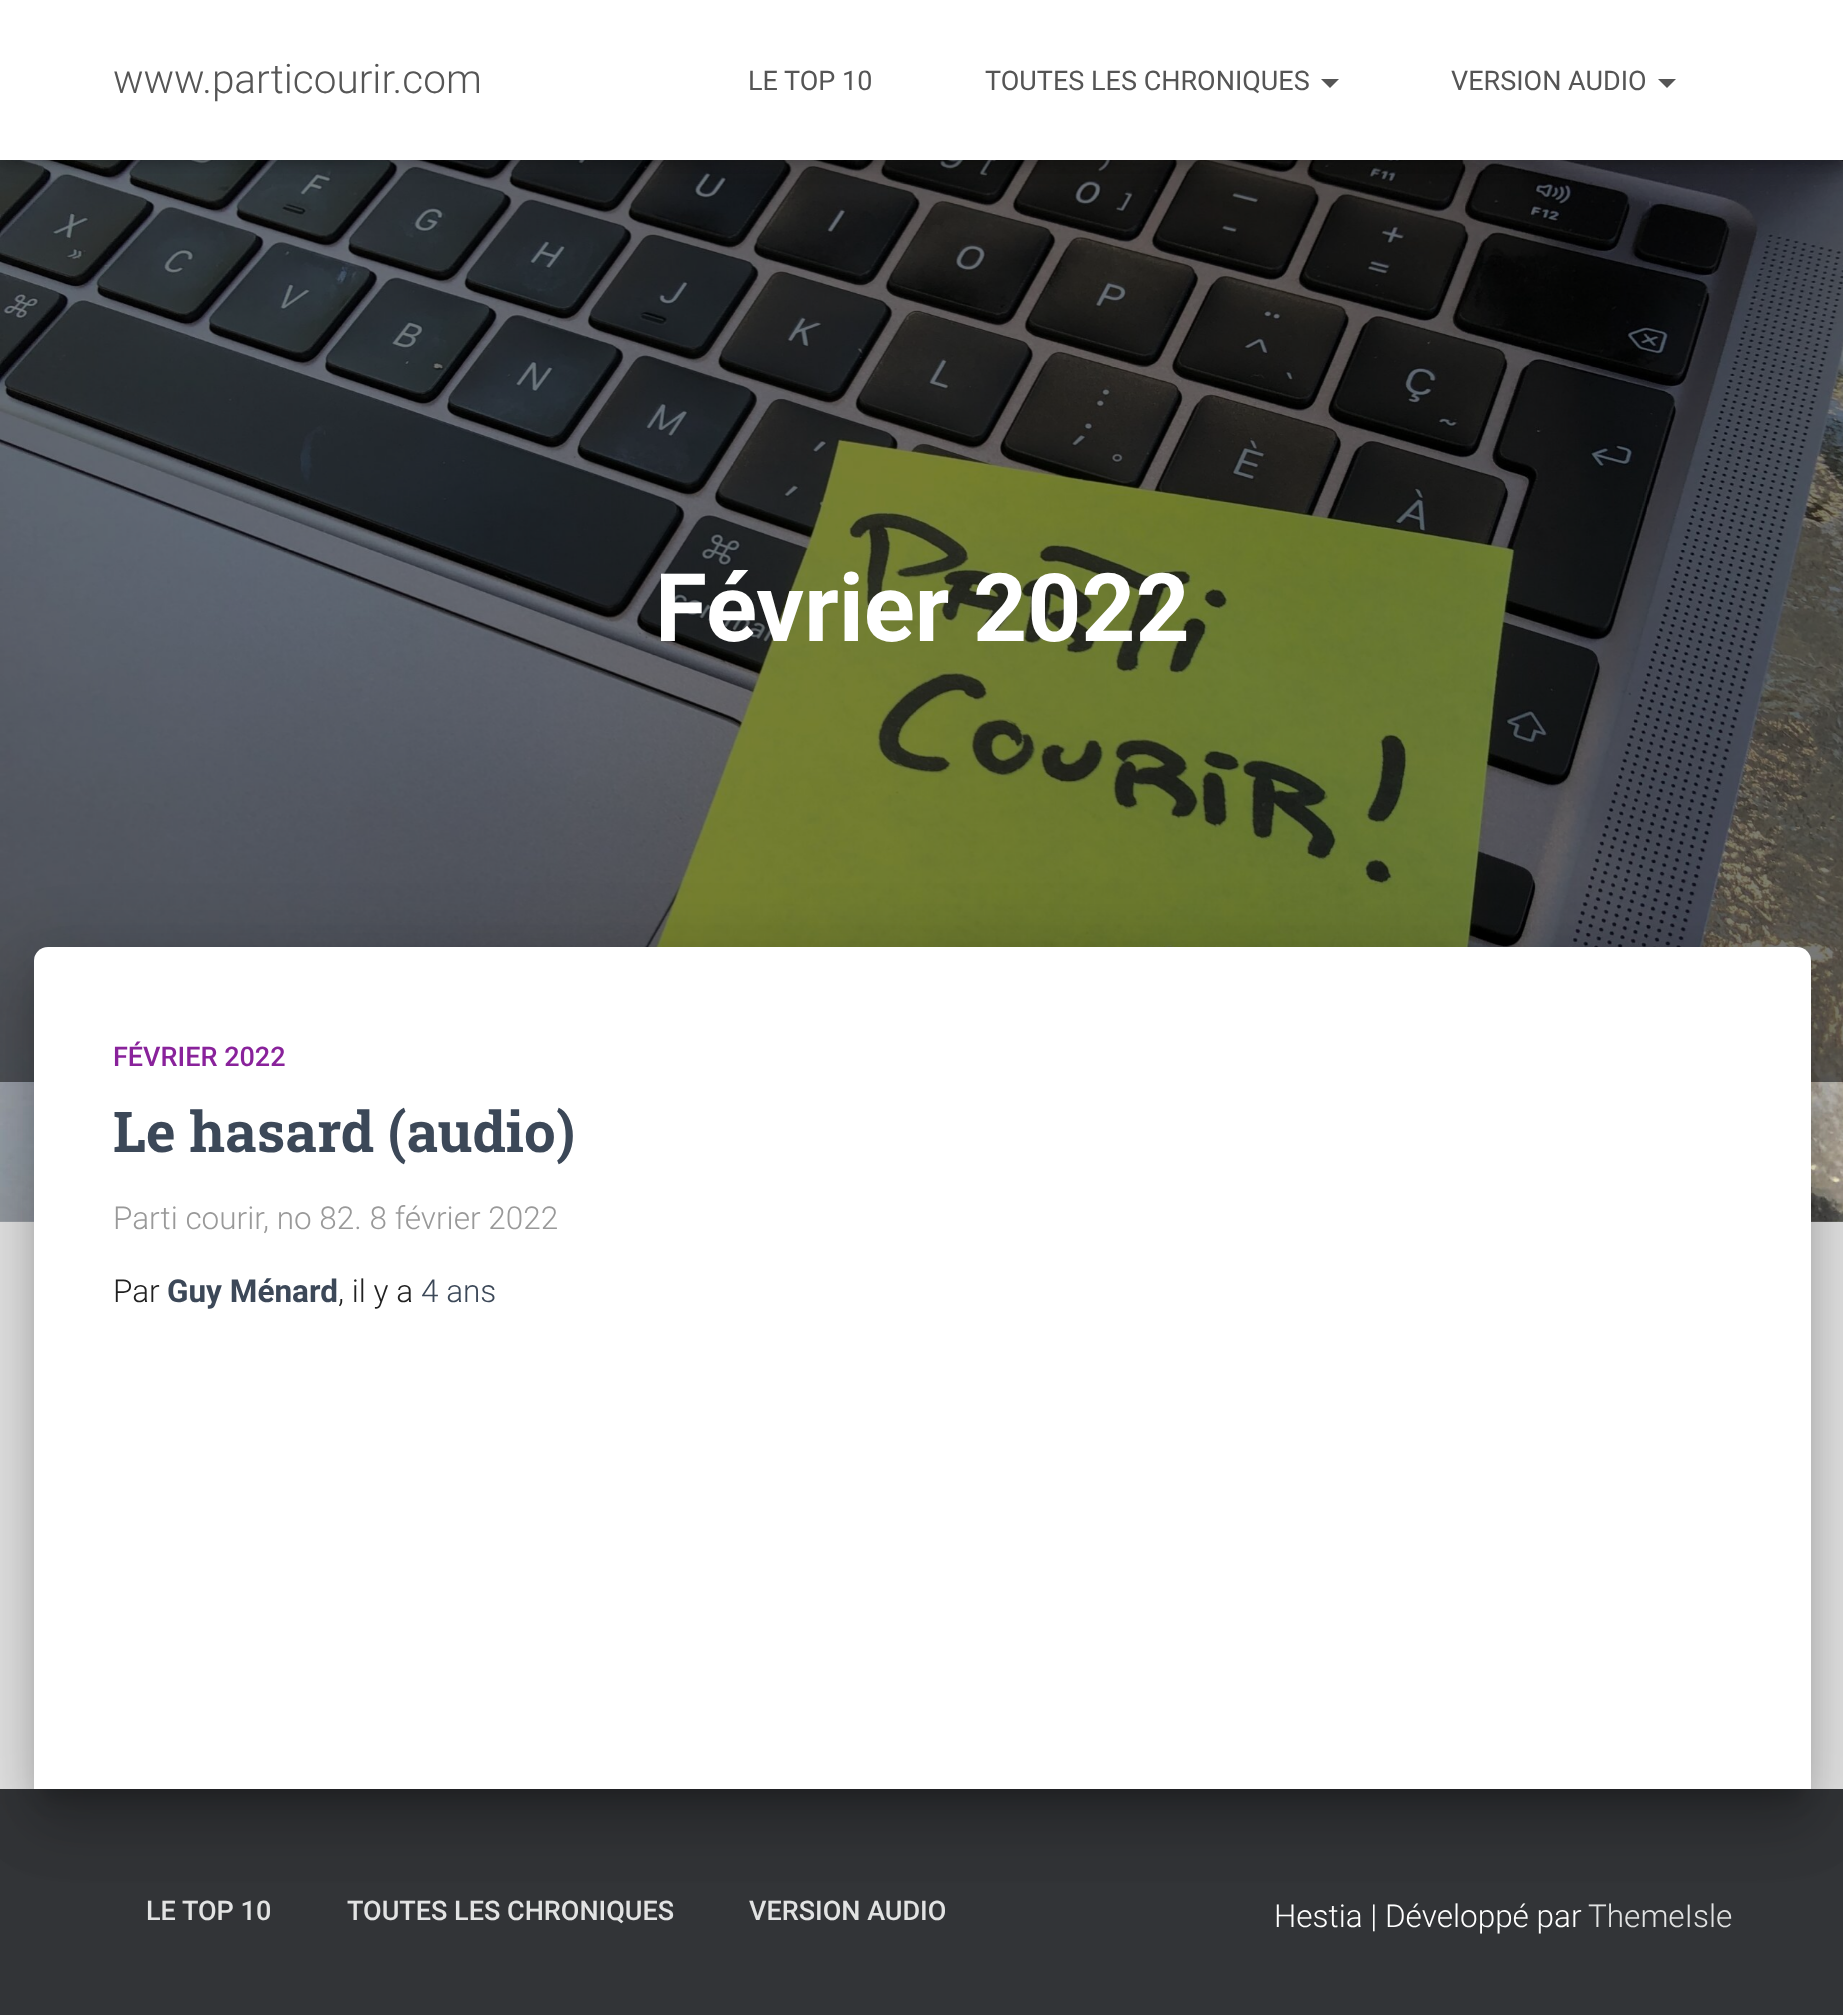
(async () => {
    const canvas = document.querySelector("canvas");
    canvas.width = 1843;
    canvas.height = 2015;
    const context = canvas.getContext("2d");
    context.miterLimit = 4;
    context.fontKerning = "normal";
    function write(s, x, y, font, color) {
        context.font = font;
        context.fillStyle = color;
        context.fillText(s, x, y);
    }
    function block(x, y, w, h, color) {
        context.fillStyle = color;
        context.fillRect(x, y, w, h);
    }
    async function photo(src, x, y, w, h) {
        const img = new Image();
        img.src = src;
        await img.decode();
        context.drawImage(img, x, y, w, h);
    }

    block(0, 0, 1843, 2015, "rgb(229, 229, 229)");
    await photo("media/1.png", 0, 160, 1843, 1062);
    block(0, 160, 1843, 922, "rgba(0, 0, 0, 0.5)");
    context.fillStyle = "rgba(0, 0, 0, 0.1)";
    context.filter = "blur(5.5px)";
    context.beginPath();
    context.rect(5, 14, 1836, 150);
    context.fill();
    context.filter = "none";
    context.fillStyle = "rgba(0, 0, 0, 0.12)";
    context.filter = "blur(11px)";
    context.beginPath();
    context.rect(0, 2, 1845, 160);
    context.fill();
    context.filter = "none";
    context.fillStyle = "rgba(0, 0, 0, 0.42)";
    context.filter = "blur(11px)";
    context.beginPath();
    context.rect(14, 16, 1818, 133);
    context.fill();
    context.filter = "none";
    block(0, 0, 1843, 160, "rgb(255, 255, 255)");
    write("www.particourir.com", 113, 93, "300 40.5px Roboto", "rgb(85, 85, 85)");
    write("LE TOP 10", 748, 90, "27px Roboto", "rgb(85, 85, 85)");
    write("TOUTES LES CHRONIQUES", 985, 90, "27px Roboto", "rgb(85, 85, 85)");
    context.beginPath();
    context.moveTo(1321, 79);
    context.lineTo(1339, 79);
    context.lineTo(1330, 88);
    context.closePath();
    context.fill();
    write("VERSION AUDIO", 1451, 90, "27px Roboto", "rgb(85, 85, 85)");
    context.beginPath();
    context.moveTo(1658, 79);
    context.lineTo(1676, 79);
    context.lineTo(1667, 88);
    context.closePath();
    context.fill();
    write("Février 2022", 655, 641, "bold 94.5px Roboto", "rgb(255, 255, 255)");
    block(0, 1789, 1843, 226, "rgb(50, 52, 55)");
    context.fillStyle = "rgba(0, 0, 0, 0.2)";
    context.filter = "blur(11px)";
    context.beginPath();
    context.roundRect(45, 977, 1755, 819, 2);
    context.fill();
    context.filter = "none";
    context.fillStyle = "rgba(0, 0, 0, 0.12)";
    context.filter = "blur(34px)";
    context.beginPath();
    context.roundRect(23, 950, 1800, 864, 25);
    context.fill();
    context.filter = "none";
    context.fillStyle = "rgba(0, 0, 0, 0.14)";
    context.filter = "blur(27px)";
    context.beginPath();
    context.roundRect(29, 979, 1787, 850, 18);
    context.fill();
    context.filter = "none";
    context.fillStyle = "rgb(255, 255, 255)";
    context.beginPath();
    context.roundRect(34, 947, 1777, 842, [14, 14, 0, 0]);
    context.fill();
    write("FÉVRIER 2022", 113, 1066, "500 27px Roboto", "rgb(137, 34, 155)");
    write("Le hasard (audio)", 113, 1152, "bold 56.25px Roboto Slab", "rgb(60, 72, 88)");
    write("Parti courir, no 82. 8 février 2022", 113, 1229, "300 31.5px Roboto", "rgb(153, 153, 153)");
    write("Par", 113, 1302, "300 31.5px Roboto", "rgb(33, 33, 33)");
    write("Guy Ménard", 167, 1302, "bold 31.5px Roboto", "rgb(60, 72, 88)");
    write(", il y a", 338, 1302, "300 31.5px Roboto", "rgb(33, 33, 33)");
    write("4 ans", 421, 1302, "300 31.5px Roboto", "rgb(60, 72, 88)");
    write("LE TOP 10", 146, 1920, "500 27px Roboto", "rgb(226, 227, 227)");
    write("TOUTES LES CHRONIQUES", 347, 1920, "500 27px Roboto", "rgb(226, 227, 227)");
    write("VERSION AUDIO", 749, 1920, "500 27px Roboto", "rgb(226, 227, 227)");
    write("Hestia | Développé par", 1274, 1927, "300 31.5px Roboto", "rgb(255, 255, 255)");
    write("ThemeIsle", 1588, 1927, "300 31.5px Roboto", "rgb(226, 227, 227)");
})();
